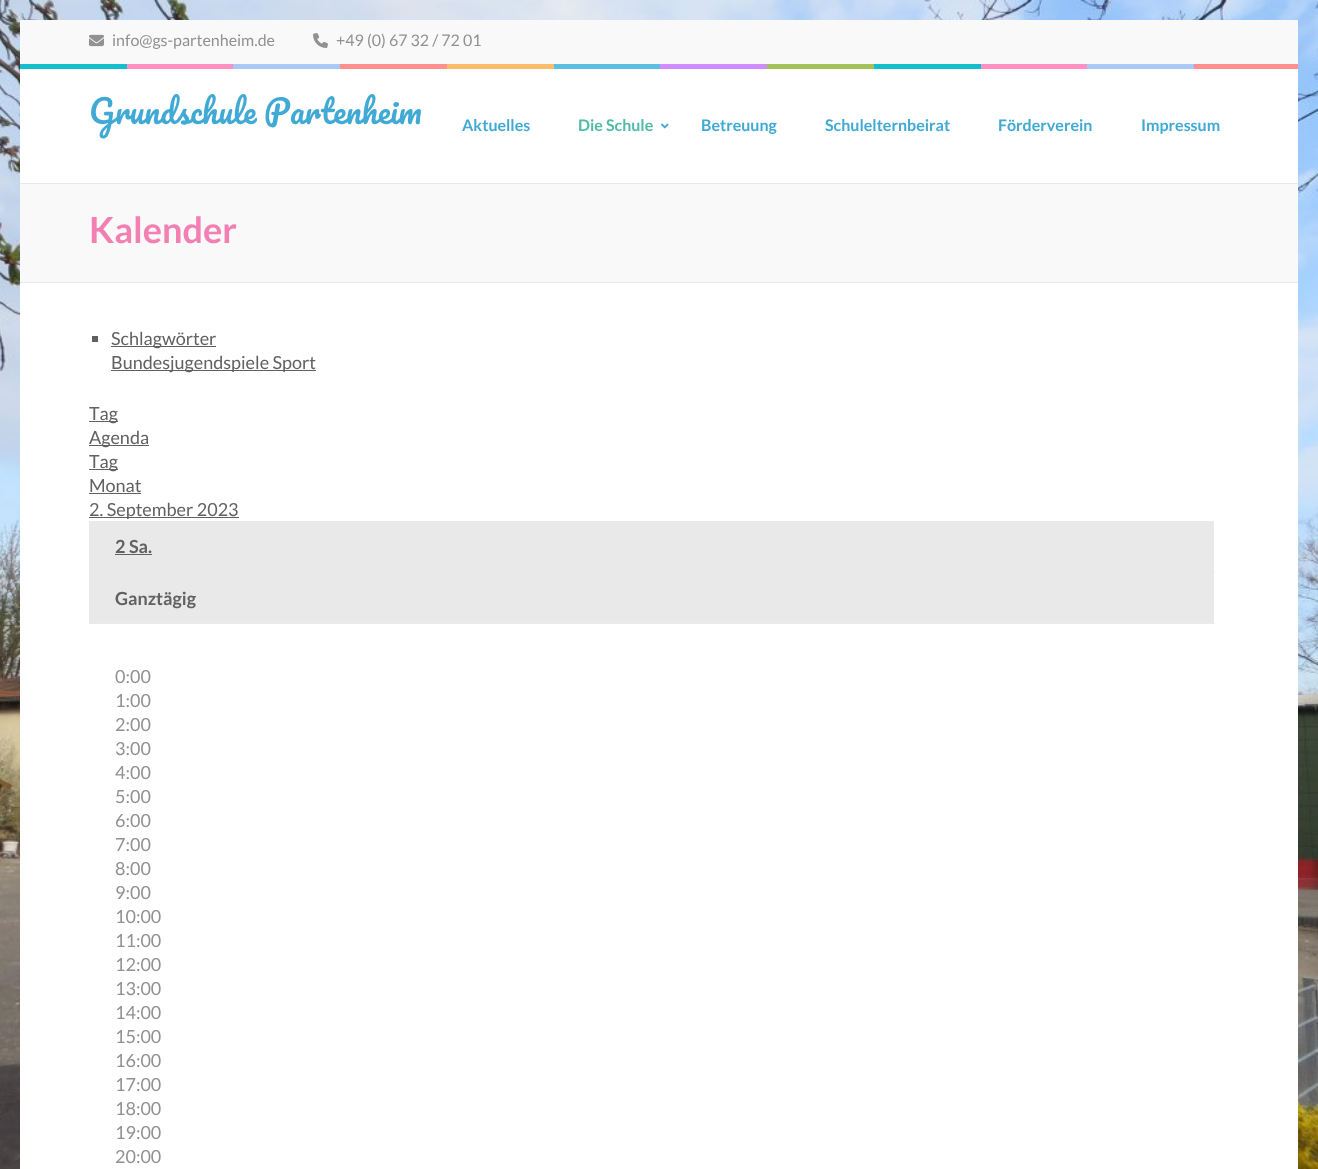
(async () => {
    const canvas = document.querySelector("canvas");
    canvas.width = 1318;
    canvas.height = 1169;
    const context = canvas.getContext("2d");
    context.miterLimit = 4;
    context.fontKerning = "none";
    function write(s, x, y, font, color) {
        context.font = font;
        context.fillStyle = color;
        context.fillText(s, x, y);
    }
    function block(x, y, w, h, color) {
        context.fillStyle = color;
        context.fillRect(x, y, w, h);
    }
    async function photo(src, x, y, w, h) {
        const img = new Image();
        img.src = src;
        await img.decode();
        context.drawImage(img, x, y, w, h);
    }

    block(0, 0, 1318, 1169, "rgb(255, 255, 255)");
    await photo("media/1.png", 0, 0, 1318, 1169);
    block(20, 69, 1278, 1100, "rgb(255, 255, 255)");
    block(20, 20, 1278, 44, "rgb(249, 249, 249)");
    await photo("media/2.png", 20, 64, 1278, 5);
    await photo("media/3.png", 89, 34, 15, 13);
    write("info@gs-partenheim.de", 112, 46, "16px Lato", "rgb(145, 145, 145)");
    await photo("media/4.png", 313, 33, 15, 15);
    write("+49 (0) 67 32 / 72 01", 336, 46, "16px Lato", "rgb(145, 145, 145)");
    context.wordSpacing = "-1px";
    write("Grundschule Partenheim", 89, 124, "32px Pacifico", "rgb(65, 170, 212)");
    context.wordSpacing = "0px";
    write("Aktuelles", 462, 131, "bold 16px Lato", "rgb(65, 170, 212)");
    write("Die Schule", 578, 131, "bold 16px Lato", "rgb(79, 187, 169)");
    await photo("media/5.png", 661, 123, 8, 6);
    write("Betreuung", 701, 131, "bold 16px Lato", "rgb(65, 170, 212)");
    write("Schulelternbeirat", 825, 131, "bold 16px Lato", "rgb(65, 170, 212)");
    write("Förderverein", 998, 131, "bold 16px Lato", "rgb(65, 170, 212)");
    write("Impressum", 1141, 131, "bold 16px Lato", "rgb(65, 170, 212)");
    block(20, 184, 1278, 98, "rgb(249, 249, 249)");
    block(20, 183, 1278, 1, "rgb(233, 233, 233)");
    block(20, 282, 1278, 1, "rgb(233, 233, 233)");
    write("Kalender", 89, 243, "bold 36px Lato", "rgb(243, 128, 178)");
    block(92, 336, 6, 6, "rgb(97, 97, 97)");
    block(111, 346, 105, 1, "rgb(97, 97, 97)");
    write("Schlagwörter", 111, 345, "18px Lato", "rgb(97, 97, 97)");
    block(111, 370, 205, 1, "rgb(97, 97, 97)");
    write("Bundesjugendspiele Sport", 111, 369, "18px Lato", "rgb(97, 97, 97)");
    block(89, 421, 29, 1, "rgb(97, 97, 97)");
    write("Tag", 89, 420, "18px Lato", "rgb(97, 97, 97)");
    block(89, 445, 60, 1, "rgb(97, 97, 97)");
    write("Agenda", 89, 444, "18px Lato", "rgb(97, 97, 97)");
    block(89, 469, 29, 1, "rgb(97, 97, 97)");
    write("Tag", 89, 468, "18px Lato", "rgb(97, 97, 97)");
    write("Monat", 89, 492, "18px Lato", "rgb(97, 97, 97)");
    block(89, 493, 52, 1, "rgb(97, 97, 97)");
    block(89, 517, 150, 1, "rgb(97, 97, 97)");
    write("2. September 2023", 89, 516, "18px Lato", "rgb(97, 97, 97)");
    block(89, 521, 1125, 102, "rgb(233, 233, 233)");
    block(1214, 571, 1, 1, "rgb(235, 235, 235)");
    write("2 Sa.", 115, 553, "bold 18px Lato", "rgb(97, 97, 97)");
    block(115, 554, 37, 1, "rgb(97, 97, 97)");
    block(89, 623, 1126, 1, "rgb(235, 235, 235)");
    write("Ganztägig", 115, 605, "bold 18px Lato", "rgb(97, 97, 97)");
    write("0:00", 115, 683, "18px Lato", "rgb(145, 145, 145)");
    write("1:00", 115, 707, "18px Lato", "rgb(145, 145, 145)");
    write("2:00", 115, 731, "18px Lato", "rgb(145, 145, 145)");
    write("3:00", 115, 755, "18px Lato", "rgb(145, 145, 145)");
    write("4:00", 115, 779, "18px Lato", "rgb(145, 145, 145)");
    write("5:00", 115, 803, "18px Lato", "rgb(145, 145, 145)");
    write("6:00", 115, 827, "18px Lato", "rgb(145, 145, 145)");
    write("7:00", 115, 851, "18px Lato", "rgb(145, 145, 145)");
    write("8:00", 115, 875, "18px Lato", "rgb(145, 145, 145)");
    write("9:00", 115, 899, "18px Lato", "rgb(145, 145, 145)");
    write("10:00", 115, 923, "18px Lato", "rgb(145, 145, 145)");
    write("11:00", 115, 947, "18px Lato", "rgb(145, 145, 145)");
    write("12:00", 115, 971, "18px Lato", "rgb(145, 145, 145)");
    write("13:00", 115, 995, "18px Lato", "rgb(145, 145, 145)");
    write("14:00", 115, 1019, "18px Lato", "rgb(145, 145, 145)");
    write("15:00", 115, 1043, "18px Lato", "rgb(145, 145, 145)");
    write("16:00", 115, 1067, "18px Lato", "rgb(145, 145, 145)");
    write("17:00", 115, 1091, "18px Lato", "rgb(145, 145, 145)");
    write("18:00", 115, 1115, "18px Lato", "rgb(145, 145, 145)");
    write("19:00", 115, 1139, "18px Lato", "rgb(145, 145, 145)");
    write("20:00", 115, 1163, "18px Lato", "rgb(145, 145, 145)");
})();
